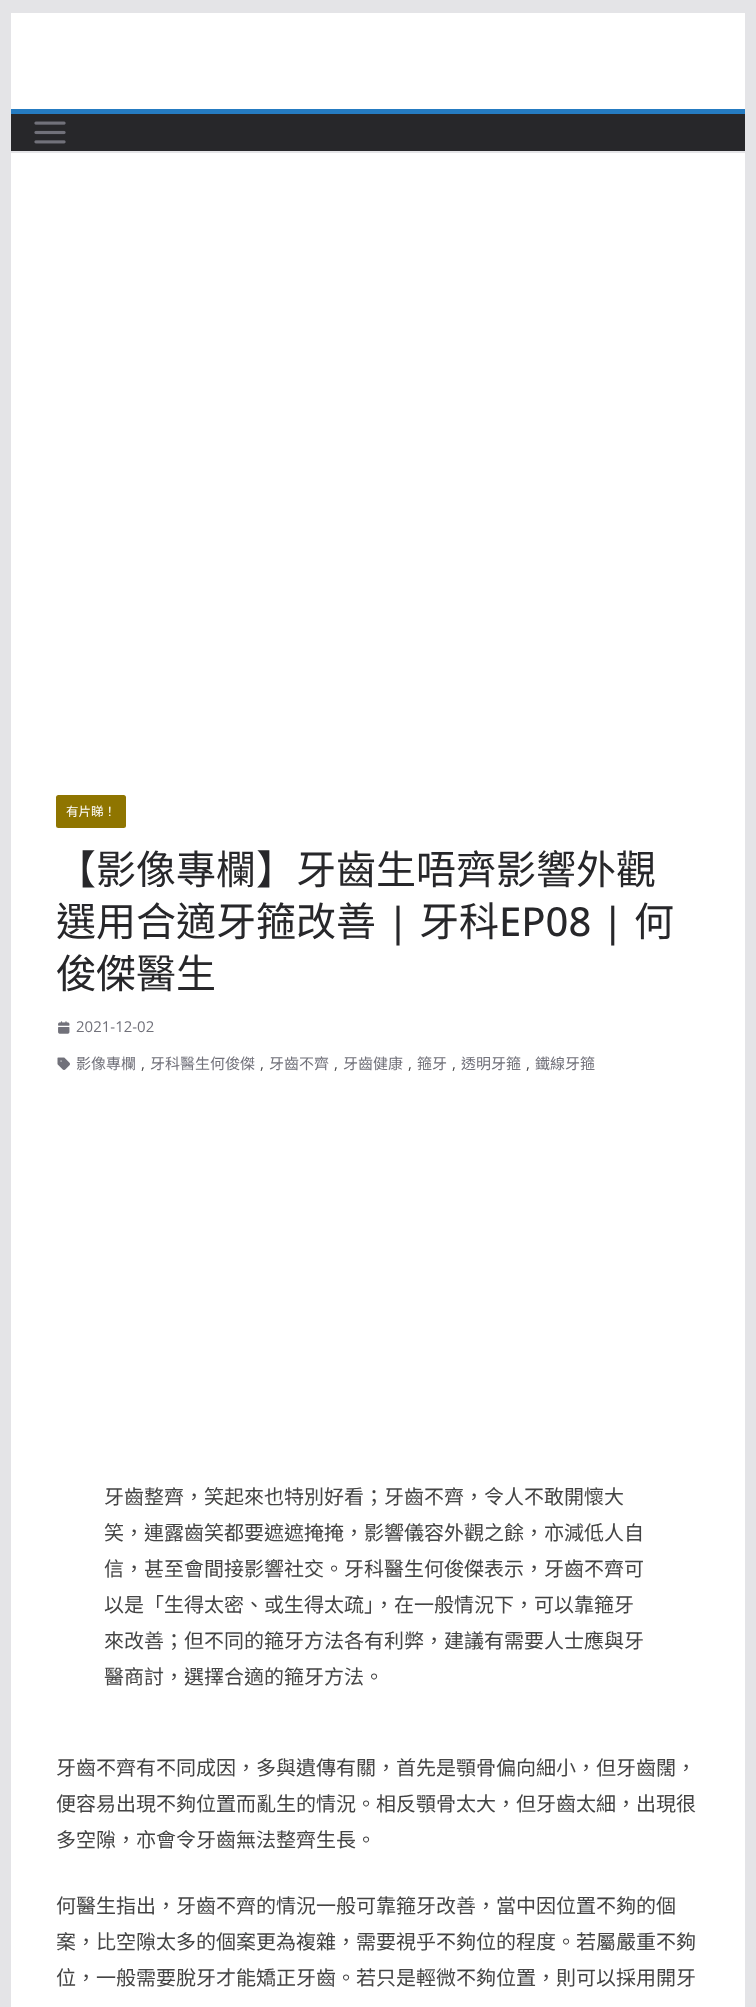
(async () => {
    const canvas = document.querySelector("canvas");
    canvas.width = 756;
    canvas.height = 2007;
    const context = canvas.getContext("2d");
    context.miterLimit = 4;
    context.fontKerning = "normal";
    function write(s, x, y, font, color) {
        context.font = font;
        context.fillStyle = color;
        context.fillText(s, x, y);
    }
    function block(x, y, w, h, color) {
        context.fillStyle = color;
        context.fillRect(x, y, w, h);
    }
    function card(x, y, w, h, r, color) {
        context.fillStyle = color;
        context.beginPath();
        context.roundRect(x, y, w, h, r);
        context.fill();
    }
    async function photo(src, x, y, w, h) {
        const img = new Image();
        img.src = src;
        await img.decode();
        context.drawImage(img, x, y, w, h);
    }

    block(0, 0, 756, 2007, "rgb(228, 228, 231)");
    block(11, 13, 734, 96, "rgb(255, 255, 255)");
    block(11, 114, 734, 37, "rgb(39, 39, 42)");
    block(11, 109, 734, 5, "rgb(37, 123, 193)");
    await photo("media/1.png", 34, 121, 32, 23);
    block(11, 153, 734, 1854, "rgb(255, 255, 255)");
    card(56, 795, 70, 33, 2.5, "rgb(143, 117, 0)");
    write("有片睇！", 66, 816, "12.5px Noto Sans CJK HK", "rgb(255, 255, 255)");
    write("【影像專欄】牙齒生唔齊影響外觀", 56, 884, "40px Noto Sans CJK HK", "rgb(39, 39, 42)");
    write("選用合適牙箍改善", 56, 936, "40px Noto Sans CJK HK", "rgb(39, 39, 42)");
    write("|", 387, 936, "500 40px Open Sans", "rgb(39, 39, 42)");
    write("牙科", 419, 936, "40px Noto Sans CJK HK", "rgb(39, 39, 42)");
    write("EP08 |", 499, 936, "500 40px Open Sans", "rgb(39, 39, 42)");
    write("何", 634, 936, "40px Noto Sans CJK HK", "rgb(39, 39, 42)");
    write("俊傑醫生", 56, 988, "40px Noto Sans CJK HK", "rgb(39, 39, 42)");
    await photo("media/2.png", 58, 1021, 12, 13);
    write("2021-12-02", 76, 1032, "15px Open Sans", "rgb(113, 113, 122)");
    await photo("media/3.png", 57, 1057, 13, 13);
    write("影像專欄", 76, 1069, "15px Noto Sans CJK HK", "rgb(113, 113, 122)");
    write(",", 141, 1069, "15px Open Sans", "rgb(68, 68, 68)");
    write("牙科醫生何俊傑", 150, 1069, "15px Noto Sans CJK HK", "rgb(113, 113, 122)");
    write(",", 260, 1069, "15px Open Sans", "rgb(68, 68, 68)");
    write("牙齒不齊", 269, 1069, "15px Noto Sans CJK HK", "rgb(113, 113, 122)");
    write(",", 334, 1069, "15px Open Sans", "rgb(68, 68, 68)");
    write("牙齒健康", 343, 1069, "15px Noto Sans CJK HK", "rgb(113, 113, 122)");
    write(",", 408, 1069, "15px Open Sans", "rgb(68, 68, 68)");
    write("箍牙", 417, 1069, "15px Noto Sans CJK HK", "rgb(113, 113, 122)");
    write(",", 452, 1069, "15px Open Sans", "rgb(68, 68, 68)");
    write("透明牙箍", 461, 1069, "15px Noto Sans CJK HK", "rgb(113, 113, 122)");
    write(",", 526, 1069, "15px Open Sans", "rgb(68, 68, 68)");
    write("鐵線牙箍", 535, 1069, "15px Noto Sans CJK HK", "rgb(113, 113, 122)");
    write("牙齒整齊，笑起來也特別好看；牙齒不齊，令人不敢開懷大", 104, 1504, "20px Noto Sans CJK HK", "rgb(68, 68, 68)");
    write("笑，連露齒笑都要遮遮掩掩，影響儀容外觀之餘，亦減低人自", 104, 1540, "20px Noto Sans CJK HK", "rgb(68, 68, 68)");
    write("信，甚至會間接影響社交。牙科醫生何俊傑表示，牙齒不齊可", 104, 1576, "20px Noto Sans CJK HK", "rgb(68, 68, 68)");
    write("以是「生得太密、或生得太疏」，在一般情況下，可以靠箍牙", 104, 1612, "20px Noto Sans CJK HK", "rgb(68, 68, 68)");
    write("來改善；但不同的箍牙方法各有利弊，建議有需要人士應與牙", 104, 1648, "20px Noto Sans CJK HK", "rgb(68, 68, 68)");
    write("醫商討，選擇合適的箍牙方法。", 104, 1684, "20px Noto Sans CJK HK", "rgb(68, 68, 68)");
    write("牙齒不齊有不同成因，多與遺傳有關，首先是顎骨偏向細小，但牙齒闊，", 56, 1775, "20px Noto Sans CJK HK", "rgb(68, 68, 68)");
    write("便容易出現不夠位置而亂生的情況。相反顎骨太大，但牙齒太細，出現很", 56, 1811, "20px Noto Sans CJK HK", "rgb(68, 68, 68)");
    write("多空隙，亦會令牙齒無法整齊生長。", 56, 1847, "20px Noto Sans CJK HK", "rgb(68, 68, 68)");
    write("何醫生指出，牙齒不齊的情況一般可靠箍牙改善，當中因位置不夠的個", 56, 1913, "20px Noto Sans CJK HK", "rgb(68, 68, 68)");
    write("案，比空隙太多的個案更為複雜，需要視乎不夠位的程度。若屬嚴重不夠", 56, 1949, "20px Noto Sans CJK HK", "rgb(68, 68, 68)");
    write("位，一般需要脫牙才能矯正牙齒。若只是輕微不夠位置，則可以採用開牙", 56, 1985, "20px Noto Sans CJK HK", "rgb(68, 68, 68)");
})();
